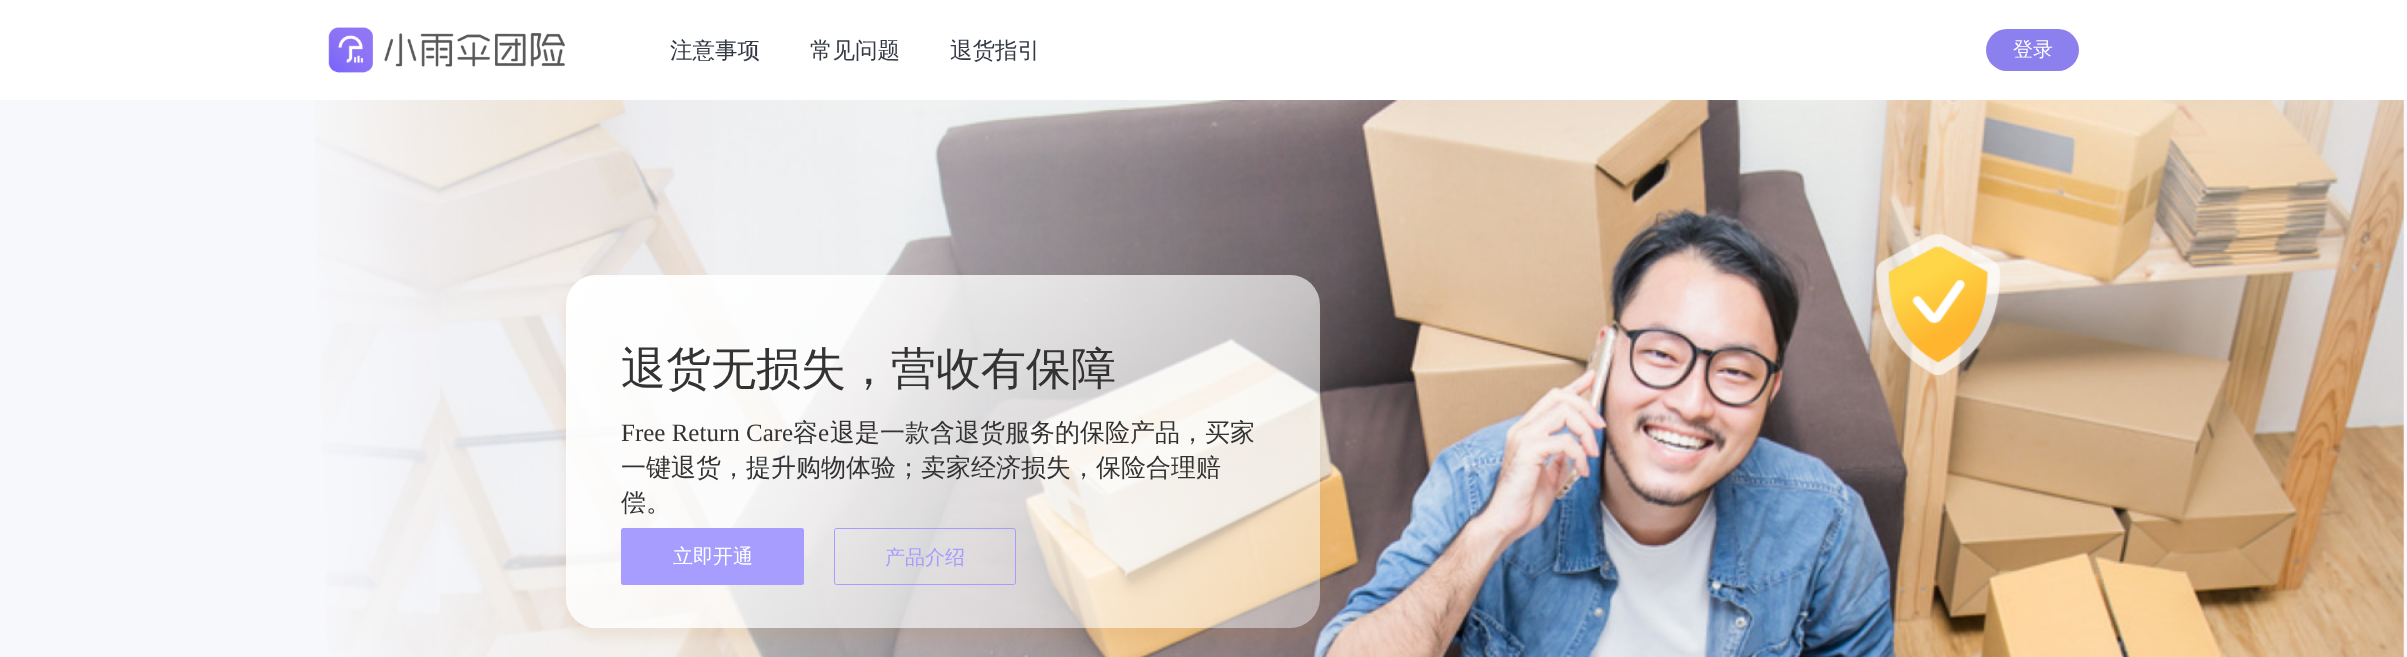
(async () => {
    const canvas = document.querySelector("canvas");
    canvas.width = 2407;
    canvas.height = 657;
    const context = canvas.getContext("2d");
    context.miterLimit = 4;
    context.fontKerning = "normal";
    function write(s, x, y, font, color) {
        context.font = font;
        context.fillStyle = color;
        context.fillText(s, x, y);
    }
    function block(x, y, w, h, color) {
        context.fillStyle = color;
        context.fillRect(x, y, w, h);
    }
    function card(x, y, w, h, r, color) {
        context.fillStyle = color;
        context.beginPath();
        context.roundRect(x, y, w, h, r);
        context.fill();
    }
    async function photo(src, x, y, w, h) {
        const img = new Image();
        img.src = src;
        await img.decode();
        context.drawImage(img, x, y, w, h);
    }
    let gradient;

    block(0, 0, 2407, 657, "rgb(247, 248, 252)");
    block(0, 0, 2407, 100, "rgb(255, 255, 255)");
    await photo("media/1.png", 328, 27, 237, 46);
    write("注意事项", 670, 58, "500 22.5px WenQuanYi Zen Hei", "rgb(51, 56, 67)");
    write("常见问题", 810, 58, "500 22.5px WenQuanYi Zen Hei", "rgb(51, 56, 67)");
    write("退货指引", 950, 58, "500 22.5px WenQuanYi Zen Hei", "rgb(51, 56, 67)");
    card(1986, 29, 93, 42, 21, "rgb(140, 127, 238)");
    write("登录", 2013, 56, "500 20px WenQuanYi Zen Hei", "rgb(255, 255, 255)");
    await photo("media/2.png", 315, 100, 2089, 557);
    context.save();
    context.beginPath();
    context.moveTo(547, 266);
    context.lineTo(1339, 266);
    context.lineTo(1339, 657);
    context.lineTo(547, 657);
    context.closePath();
    context.moveTo(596, 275);
    context.lineTo(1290, 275);
    context.bezierCurveTo(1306.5, 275, 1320, 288.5, 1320, 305);
    context.lineTo(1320, 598);
    context.bezierCurveTo(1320, 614.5, 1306.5, 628, 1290, 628);
    context.lineTo(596, 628);
    context.bezierCurveTo(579.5, 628, 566, 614.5, 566, 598);
    context.lineTo(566, 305);
    context.bezierCurveTo(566, 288.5, 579.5, 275, 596, 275);
    context.closePath();
    context.clip("evenodd");
    context.fillStyle = "rgba(195, 130, 55, 0.12)";
    context.filter = "blur(6px)";
    context.beginPath();
    context.roundRect(566, 285, 754, 353, 30);
    context.fill();
    context.filter = "none";
    context.restore();
    gradient = context.createLinearGradient(701, 162, 1186, 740);
    gradient.addColorStop(0, "rgb(255, 255, 255)");
    gradient.addColorStop(1, "rgba(255, 255, 255, 0.42)");
    context.fillStyle = gradient;
    context.beginPath();
    context.roundRect(566, 275, 754, 353, 30);
    context.fill();
    write("退货无损失，营收有保障", 621, 384, "500 45px WenQuanYi Zen Hei", "rgb(51, 51, 51)");
    write("Free Return Care", 621, 441, "25px Liberation Serif", "rgb(51, 51, 51)");
    write("容", 793, 441, "500 25px WenQuanYi Zen Hei", "rgb(51, 51, 51)");
    write("e", 818, 441, "25px Liberation Serif", "rgb(51, 51, 51)");
    write("退是一款含退货服务的保险产品，买家", 830, 441, "500 25px WenQuanYi Zen Hei", "rgb(51, 51, 51)");
    write("一键退货，提升购物体验；卖家经济损失，保险合理赔", 621, 476, "500 25px WenQuanYi Zen Hei", "rgb(51, 51, 51)");
    write("偿。", 621, 511, "500 25px WenQuanYi Zen Hei", "rgb(51, 51, 51)");
    card(621, 528, 183, 57, 2.5, "rgb(166, 157, 255)");
    write("立即开通", 673, 563, "500 20px WenQuanYi Zen Hei", "rgb(255, 255, 255)");
    context.beginPath();
    context.roundRect(834.5, 528.5, 181, 56, 2);
    context.strokeStyle = "rgb(166, 157, 255)";
    context.stroke();
    write("产品介绍", 885, 564, "500 20px WenQuanYi Zen Hei", "rgb(166, 157, 255)");
})();
